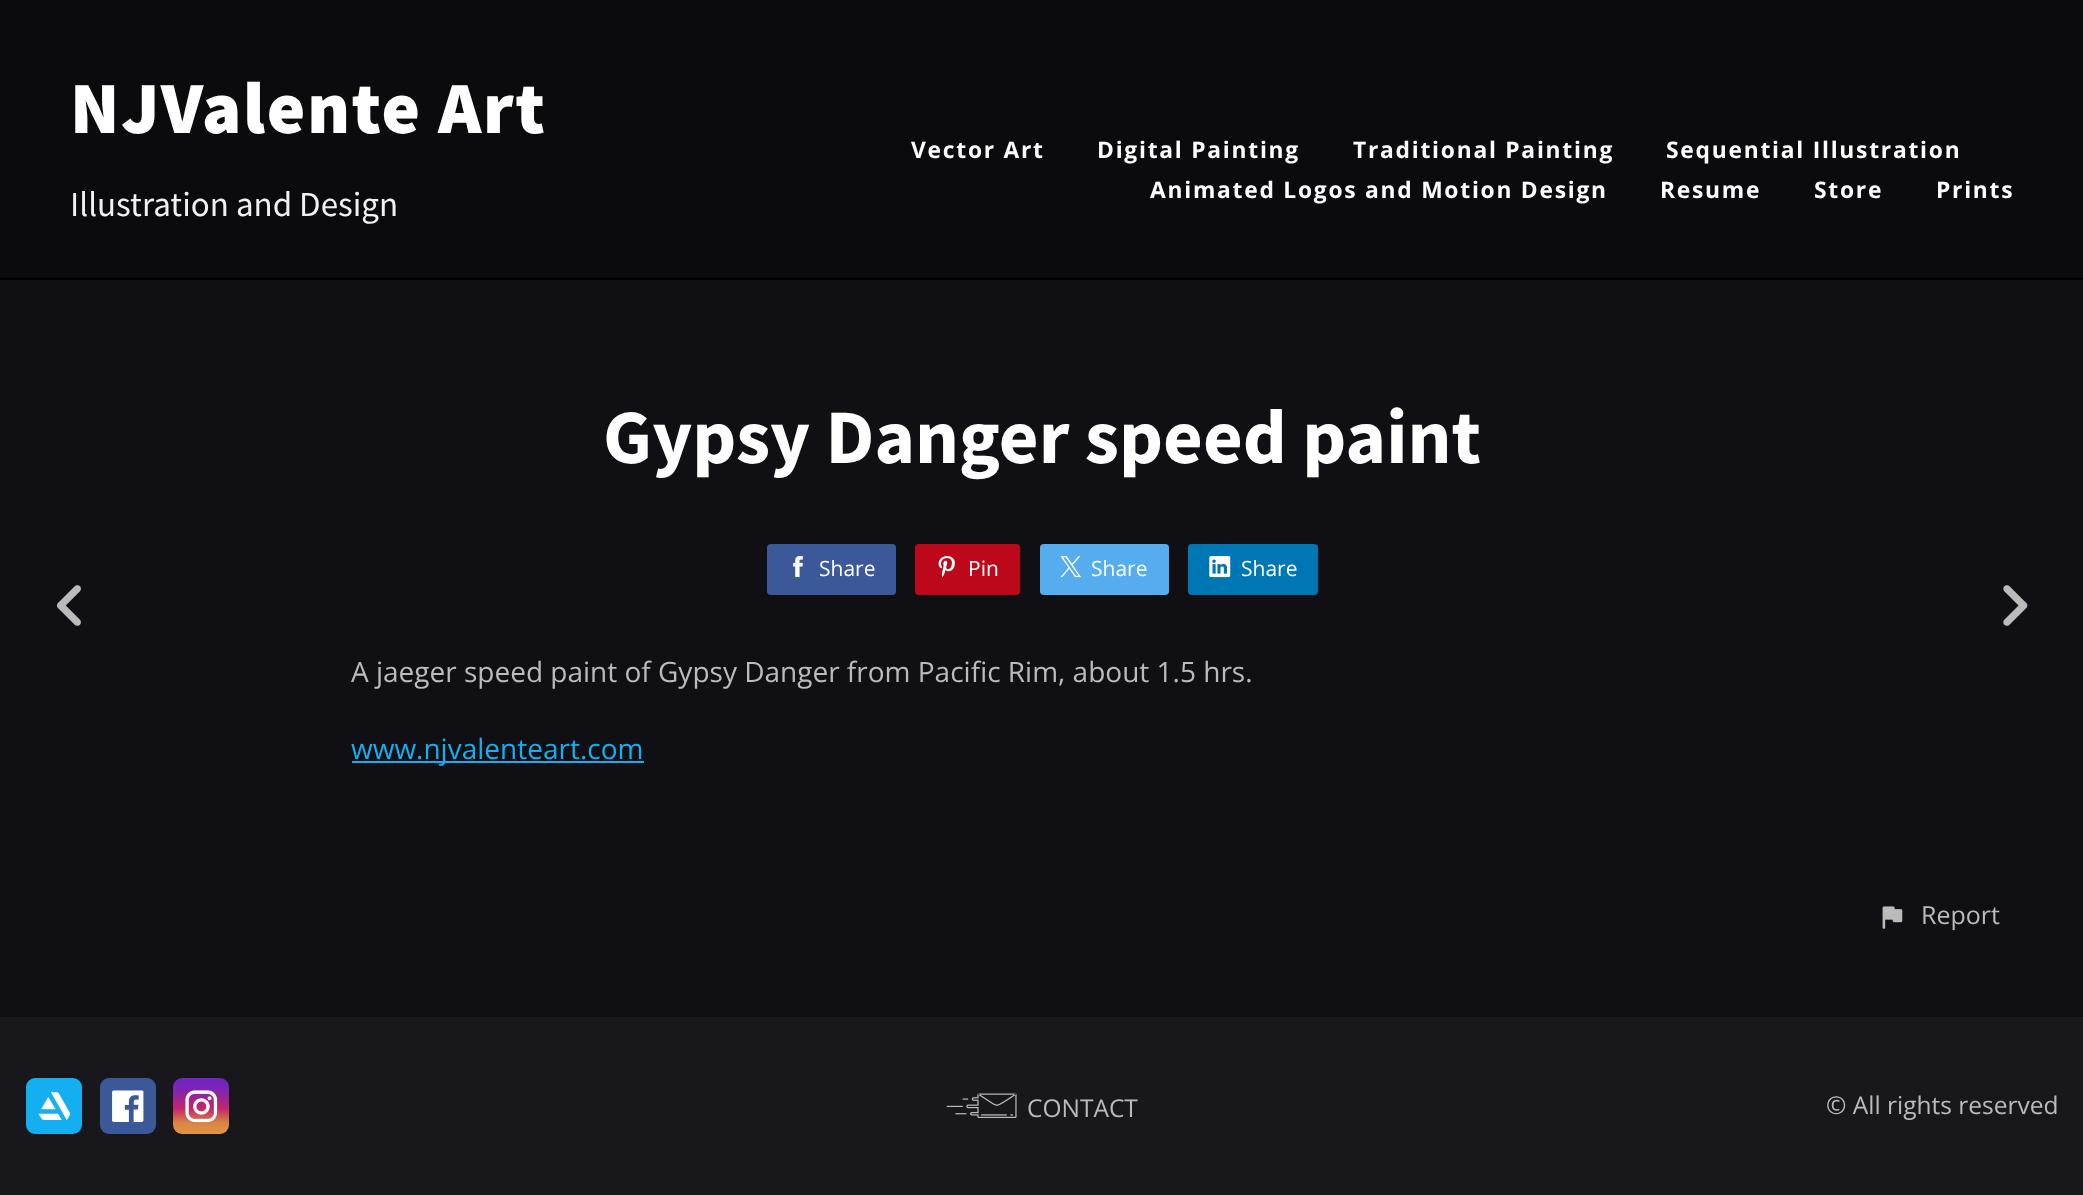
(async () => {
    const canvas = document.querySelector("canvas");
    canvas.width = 2083;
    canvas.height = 1195;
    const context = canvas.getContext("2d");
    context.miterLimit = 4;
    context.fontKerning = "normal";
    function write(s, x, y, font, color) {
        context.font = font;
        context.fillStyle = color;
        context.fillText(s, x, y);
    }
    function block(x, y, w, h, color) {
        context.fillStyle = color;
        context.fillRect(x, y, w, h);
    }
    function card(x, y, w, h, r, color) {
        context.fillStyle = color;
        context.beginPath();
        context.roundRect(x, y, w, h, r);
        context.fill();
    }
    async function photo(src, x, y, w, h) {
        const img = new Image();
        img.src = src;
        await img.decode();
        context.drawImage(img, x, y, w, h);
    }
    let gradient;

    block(0, 0, 2083, 1195, "rgb(16, 16, 20)");
    block(0, 0, 2083, 278, "rgb(11, 11, 14)");
    block(0, 278, 2083, 2, "rgb(0, 0, 0)");
    context.letterSpacing = "1.75px";
    write("NJValente Art", 70, 133, "900 73.5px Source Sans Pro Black", "rgb(255, 255, 255)");
    context.letterSpacing = "0px";
    write("Illustration and Design", 70, 216, "35px Source Sans Pro", "rgb(241, 241, 241)");
    context.letterSpacing = "1.75px";
    write("Vector Art", 911, 158, "bold 22.8px Open Sans", "rgb(255, 255, 255)");
    write("Digital Painting", 1097, 158, "bold 22.8px Open Sans", "rgb(255, 255, 255)");
    write("Traditional Painting", 1353, 158, "bold 22.8px Open Sans", "rgb(255, 255, 255)");
    write("Sequential Illustration", 1666, 158, "bold 22.8px Open Sans", "rgb(255, 255, 255)");
    write("Animated Logos and Motion Design", 1150, 198, "bold 22.8px Open Sans", "rgb(255, 255, 255)");
    write("Resume", 1660, 198, "bold 22.8px Open Sans", "rgb(255, 255, 255)");
    write("Store", 1814, 198, "bold 22.8px Open Sans", "rgb(255, 255, 255)");
    write("Prints", 1936, 198, "bold 22.8px Open Sans", "rgb(255, 255, 255)");
    await photo("media/1.png", 56, 585, 25, 41);
    context.letterSpacing = "0px";
    write("Gypsy Danger speed paint", 603, 463, "bold 77px Source Sans Pro", "rgb(255, 255, 255)");
    card(767, 544, 129, 51, 4, "rgb(59, 89, 153)");
    await photo("media/2.png", 793, 556, 10, 22);
    write("Share", 819, 576, "21px Open Sans", "rgb(255, 255, 255)");
    card(915, 544, 105, 51, 4, "rgb(189, 8, 28)");
    await photo("media/3.png", 938, 556, 17, 21);
    write("Pin", 968, 576, "21px Open Sans", "rgb(255, 255, 255)");
    card(1040, 544, 129, 51, 4, "rgb(85, 172, 238)");
    await photo("media/4.png", 1060, 556, 21, 22);
    write("Share", 1091, 576, "21px Open Sans", "rgb(255, 255, 255)");
    card(1188, 544, 130, 51, 4, "rgb(0, 119, 181)");
    await photo("media/5.png", 1209, 556, 22, 22);
    write("Share", 1241, 576, "21px Open Sans", "rgb(255, 255, 255)");
    write("A jaeger speed paint of Gypsy Danger from Pacific Rim, about 1.5 hrs.", 351, 682, "28px Open Sans", "rgb(187, 187, 187)");
    block(352, 761, 292, 2, "rgb(19, 175, 240)");
    write("www.njvalenteart.com", 351, 759, "28px Open Sans", "rgb(19, 175, 240)");
    await photo("media/6.png", 1882, 906, 21, 23);
    write("Report", 1921, 924, "25px Open Sans", "rgb(187, 187, 187)");
    await photo("media/7.png", 2003, 585, 25, 41);
    block(0, 1017, 2083, 178, "rgb(24, 24, 28)");
    card(26, 1078, 56, 56, 9, "rgb(19, 175, 240)");
    await photo("media/8.png", 38, 1092, 32, 29);
    card(100, 1078, 56, 56, 9, "rgb(59, 89, 153)");
    await photo("media/9.png", 112, 1090, 32, 32);
    gradient = context.createLinearGradient(201, 1134, 201, 1078);
    gradient.addColorStop(0, "rgb(223, 153, 61)");
    gradient.addColorStop(0.2, "rgb(218, 132, 68)");
    gradient.addColorStop(0.45, "rgb(195, 39, 105)");
    gradient.addColorStop(0.79, "rgb(127, 36, 181)");
    gradient.addColorStop(1, "rgb(112, 36, 196)");
    context.fillStyle = gradient;
    context.beginPath();
    context.roundRect(173, 1078, 56, 56, 9);
    context.fill();
    await photo("media/10.png", 185, 1090, 33, 33);
    await photo("media/11.png", 946, 1093, 71, 25);
    write("CONTACT", 1027, 1117, "24.5px Open Sans", "rgb(187, 187, 187)");
    write("© All rights reserved", 1826, 1114, "24.5px Open Sans", "rgb(187, 187, 187)");
})();
